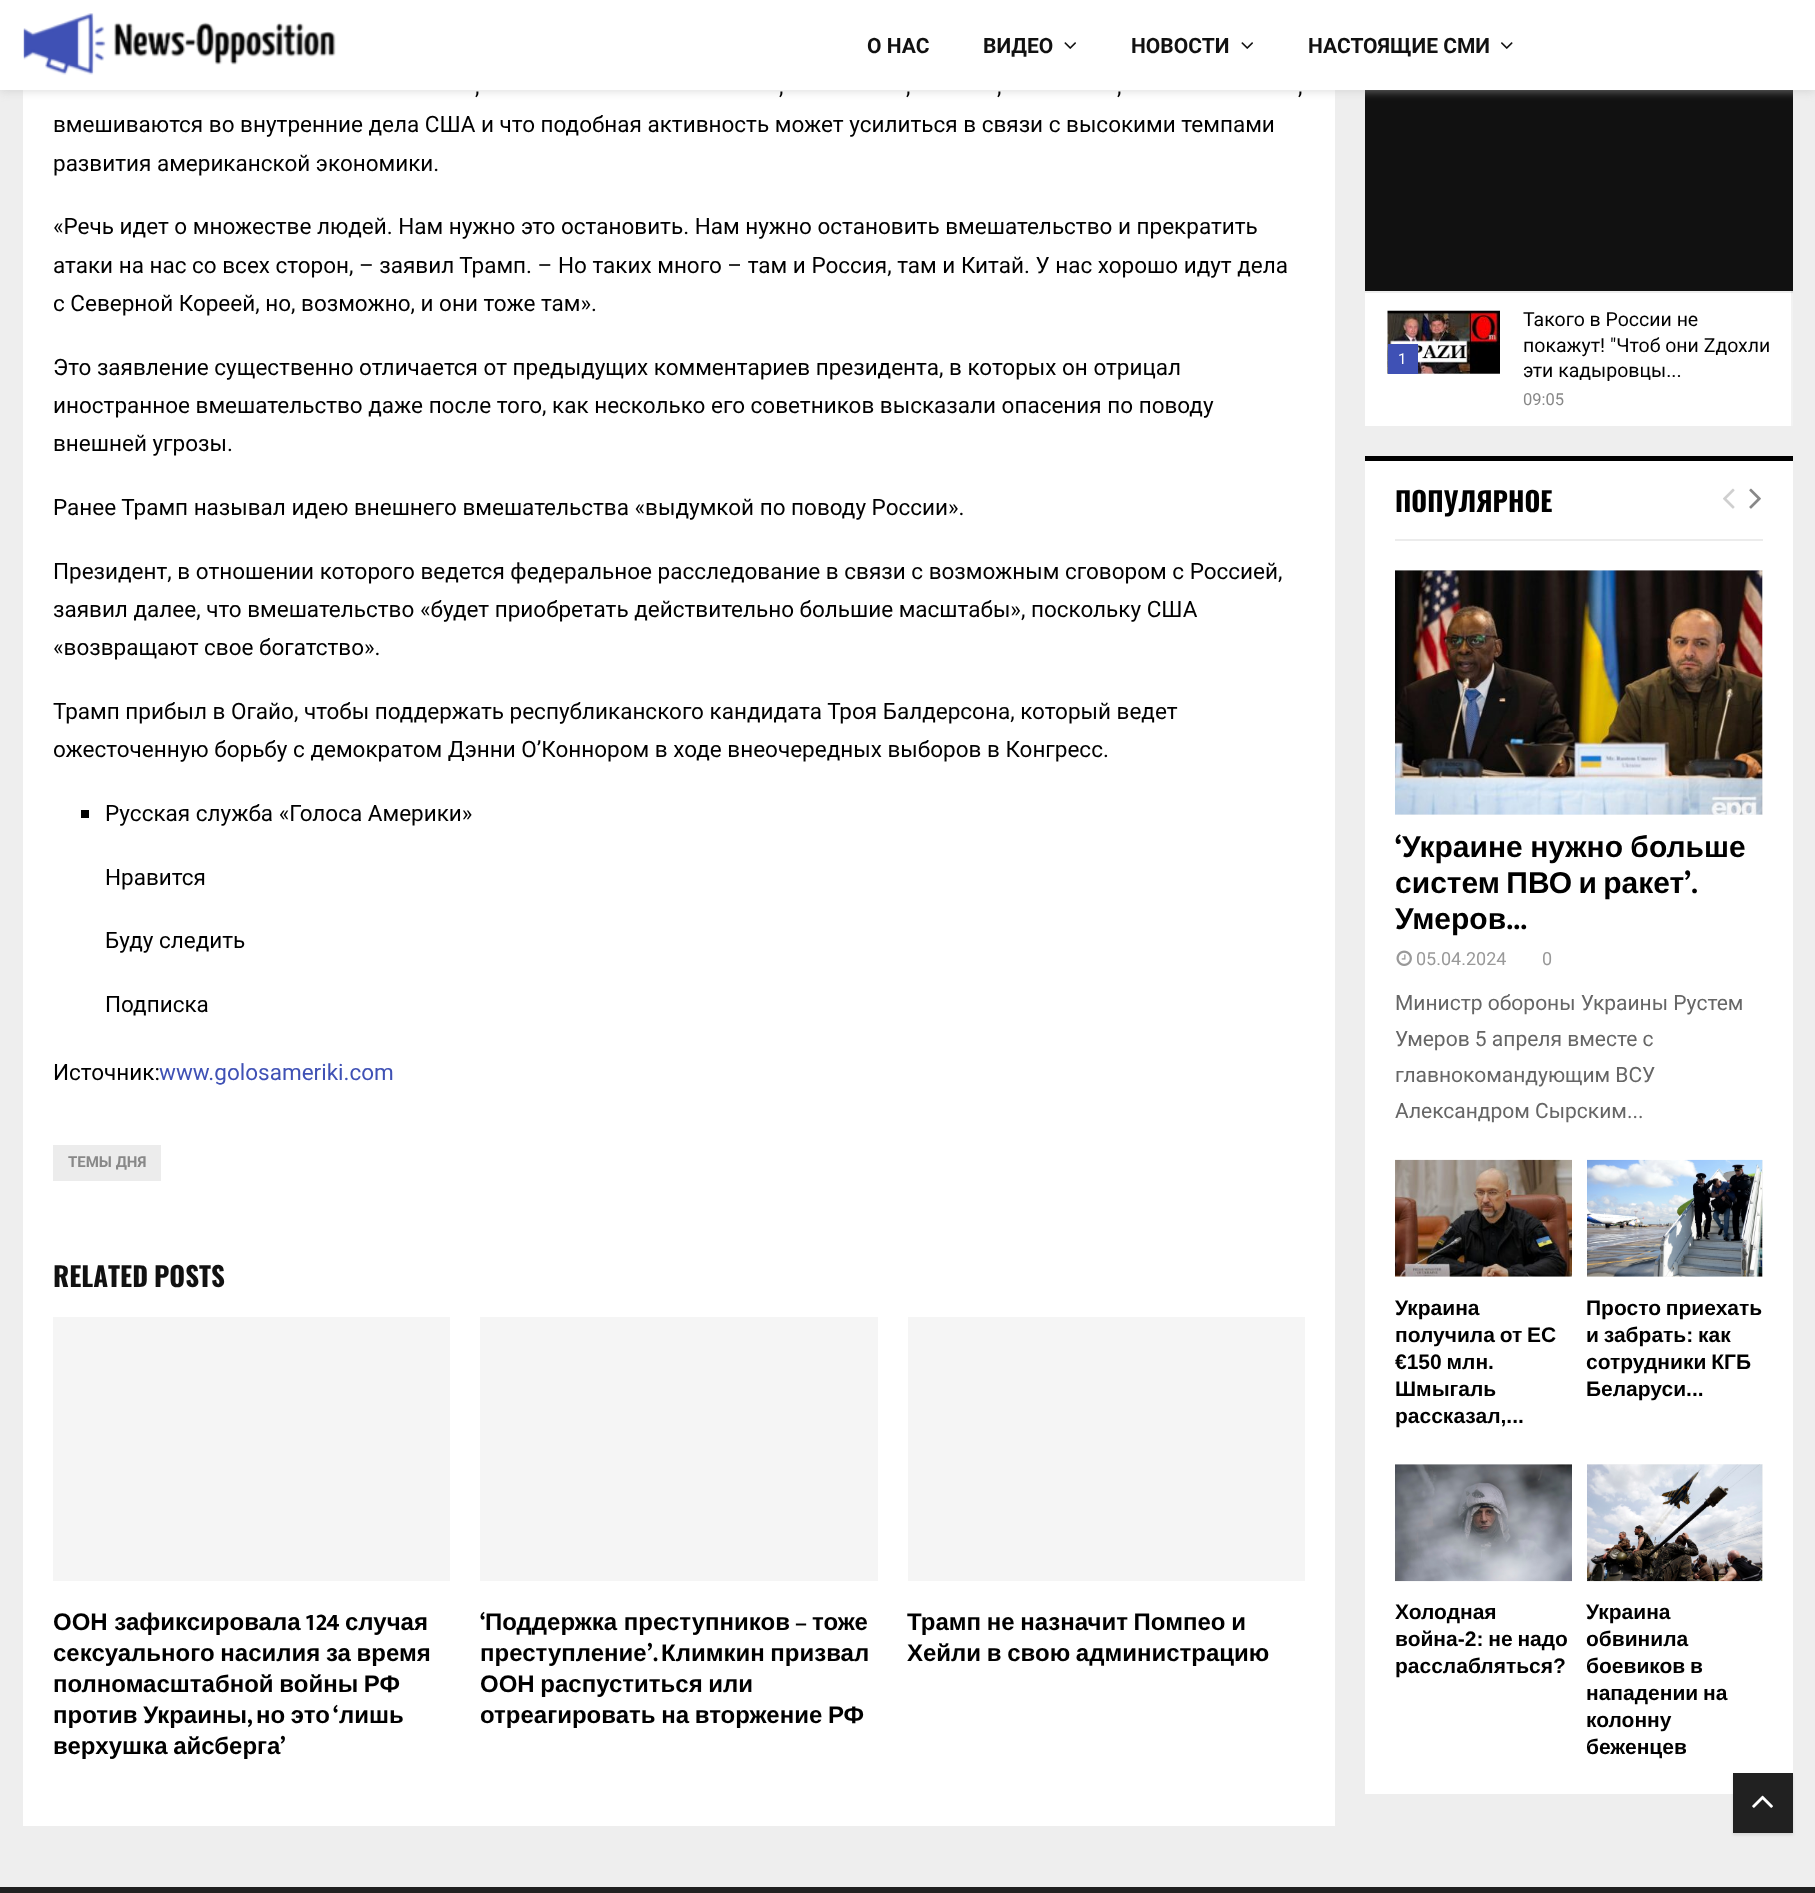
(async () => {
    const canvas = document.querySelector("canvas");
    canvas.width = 1815;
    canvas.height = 1893;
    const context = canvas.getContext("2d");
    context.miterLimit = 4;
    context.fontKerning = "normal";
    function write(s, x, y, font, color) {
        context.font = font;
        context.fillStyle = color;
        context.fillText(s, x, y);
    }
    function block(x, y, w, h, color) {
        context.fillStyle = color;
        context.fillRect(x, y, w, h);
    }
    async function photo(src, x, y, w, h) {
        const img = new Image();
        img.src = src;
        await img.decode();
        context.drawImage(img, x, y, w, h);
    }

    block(0, 0, 1815, 1893, "rgb(238, 238, 238)");
    block(23, 90, 1312, 1736, "rgb(255, 255, 255)");
    block(1365, 90, 428, 201, "rgb(17, 17, 17)");
    context.fillStyle = "rgba(190, 190, 190, 0.46)";
    context.filter = "blur(4px)";
    context.beginPath();
    context.rect(0, 2, 1815, 90);
    context.fill();
    context.filter = "none";
    block(0, 0, 1815, 90, "rgb(255, 255, 255)");
    await photo("media/1.png", 23, 13, 313, 62);
    write("О НАС", 867, 53, "bold 21px Roboto", "rgb(17, 17, 17)");
    write("ВИДЕО", 983, 53, "bold 21px Roboto", "rgb(17, 17, 17)");
    await photo("media/2.png", 1064, 42, 12, 7);
    write("НОВОСТИ", 1131, 53, "bold 21px Roboto", "rgb(17, 17, 17)");
    await photo("media/2.png", 1241, 42, 12, 7);
    write("НАСТОЯЩИЕ СМИ", 1308, 53, "bold 21px Roboto", "rgb(17, 17, 17)");
    await photo("media/3.png", 1501, 42, 12, 7);
    write(",", 475, 94, "22.5px Roboto", "rgb(0, 0, 0)");
    write(",", 779, 94, "22.5px Roboto", "rgb(0, 0, 0)");
    write(",", 906, 94, "22.5px Roboto", "rgb(0, 0, 0)");
    write(",", 997, 94, "22.5px Roboto", "rgb(0, 0, 0)");
    write(",", 1117, 94, "22.5px Roboto", "rgb(0, 0, 0)");
    write(",", 1298, 94, "22.5px Roboto", "rgb(0, 0, 0)");
    write("вмешиваются во внутренние дела США и что подобная активность может усилиться в связи с высокими темпами", 53, 132, "22.5px Roboto", "rgb(0, 0, 0)");
    write("развития американской экономики.", 53, 171, "22.5px Roboto", "rgb(0, 0, 0)");
    write("«Речь идет о множестве людей. Нам нужно это остановить. Нам нужно остановить вмешательство и прекратить", 53, 234, "22.5px Roboto", "rgb(0, 0, 0)");
    write("атаки на нас со всех сторон, – заявил Трамп. – Но таких много – там и Россия, там и Китай. У нас хорошо идут дела", 53, 273, "22.5px Roboto", "rgb(0, 0, 0)");
    write("с Северной Кореей, но, возможно, и они тоже там».", 53, 311, "22.5px Roboto", "rgb(0, 0, 0)");
    write("Это заявление существенно отличается от предыдущих комментариев президента, в которых он отрицал", 53, 375, "22.5px Roboto", "rgb(0, 0, 0)");
    write("иностранное вмешательство даже после того, как несколько его советников высказали опасения по поводу", 53, 413, "22.5px Roboto", "rgb(0, 0, 0)");
    write("внешней угрозы.", 53, 451, "22.5px Roboto", "rgb(0, 0, 0)");
    write("Ранее Трамп называл идею внешнего вмешательства «выдумкой по поводу России».", 53, 515, "22.5px Roboto", "rgb(0, 0, 0)");
    write("Президент, в отношении которого ведется федеральное расследование в связи с возможным сговором с Россией,", 53, 579, "22.5px Roboto", "rgb(0, 0, 0)");
    write("заявил далее, что вмешательство «будет приобретать действительно большие масштабы», поскольку США", 53, 617, "22.5px Roboto", "rgb(0, 0, 0)");
    write("«возвращают свое богатство».", 53, 655, "22.5px Roboto", "rgb(0, 0, 0)");
    write("Трамп прибыл в Огайо, чтобы поддержать республиканского кандидата Троя Балдерсона, который ведет", 53, 719, "22.5px Roboto", "rgb(0, 0, 0)");
    write("ожесточенную борьбу с демократом Дэнни О’Коннором в ходе внеочередных выборов в Конгресс.", 53, 757, "22.5px Roboto", "rgb(0, 0, 0)");
    block(81, 810, 8, 8, "rgb(0, 0, 0)");
    write("Русская служба «Голоса Америки»", 105, 821, "22.5px Roboto", "rgb(0, 0, 0)");
    write("Нравится", 105, 885, "22.5px Roboto", "rgb(0, 0, 0)");
    write("Буду следить", 105, 948, "22.5px Roboto", "rgb(0, 0, 0)");
    write("Подписка", 105, 1012, "22.5px Roboto", "rgb(0, 0, 0)");
    write("Источник:", 53, 1080, "22.5px Roboto", "rgb(0, 0, 0)");
    write("www.golosameriki.com", 159, 1080, "22.5px Roboto", "rgb(63, 81, 181)");
    block(53, 1145, 108, 36, "rgb(236, 236, 236)");
    write("ТЕМЫ ДНЯ", 68, 1167, "bold 15px Roboto", "rgb(136, 136, 136)");
    context.wordSpacing = "-1px";
    write("RELATED POSTS", 53, 1287, "bold 27px Oswald", "rgb(17, 17, 17)");
    block(53, 1317, 397, 264, "rgb(245, 245, 245)");
    context.wordSpacing = "0px";
    write("ООН зафиксировала", 53, 1630, "bold 24px Liberation Sans", "rgb(0, 0, 0)");
    write("124", 305, 1630, "bold 24px Mukta Vaani", "rgb(0, 0, 0)");
    write("случая", 345, 1630, "bold 24px Liberation Sans", "rgb(0, 0, 0)");
    context.wordSpacing = "-1px";
    write("сексуального насилия за время", 53, 1661, "bold 24px Liberation Sans", "rgb(0, 0, 0)");
    write("полномасштабной войны РФ", 53, 1692, "bold 24px Liberation Sans", "rgb(0, 0, 0)");
    write("против Украины", 53, 1723, "bold 24px Liberation Sans", "rgb(0, 0, 0)");
    context.wordSpacing = "0px";
    write(",", 247, 1723, "bold 24px Mukta Vaani", "rgb(0, 0, 0)");
    context.wordSpacing = "-1px";
    write("но это", 256, 1723, "bold 24px Liberation Sans", "rgb(0, 0, 0)");
    context.wordSpacing = "0px";
    write("‘", 333, 1723, "bold 24px Mukta Vaani", "rgb(0, 0, 0)");
    write("лишь", 339, 1723, "bold 24px Liberation Sans", "rgb(0, 0, 0)");
    context.wordSpacing = "-1px";
    write("верхушка айсберга", 53, 1754, "bold 24px Liberation Sans", "rgb(0, 0, 0)");
    context.wordSpacing = "0px";
    write("’", 280, 1754, "bold 24px Mukta Vaani", "rgb(0, 0, 0)");
    block(480, 1317, 398, 264, "rgb(245, 245, 245)");
    write("‘", 480, 1630, "bold 24px Mukta Vaani", "rgb(0, 0, 0)");
    write("Поддержка преступников", 485, 1630, "bold 24px Liberation Sans", "rgb(0, 0, 0)");
    write("–", 795, 1630, "bold 24px Mukta Vaani", "rgb(0, 0, 0)");
    write("тоже", 812, 1630, "bold 24px Liberation Sans", "rgb(0, 0, 0)");
    write("преступление", 480, 1661, "bold 24px Liberation Sans", "rgb(0, 0, 0)");
    write("’.", 647, 1661, "bold 24px Mukta Vaani", "rgb(0, 0, 0)");
    context.wordSpacing = "-1px";
    write("Климкин призвал", 661, 1661, "bold 24px Liberation Sans", "rgb(0, 0, 0)");
    write("ООН распуститься или", 480, 1692, "bold 24px Liberation Sans", "rgb(0, 0, 0)");
    write("отреагировать на вторжение РФ", 480, 1723, "bold 24px Liberation Sans", "rgb(0, 0, 0)");
    block(908, 1317, 397, 264, "rgb(245, 245, 245)");
    write("Трамп не назначит Помпео и", 907, 1630, "bold 24px Liberation Sans", "rgb(0, 0, 0)");
    write("Хейли в свою администрацию", 907, 1661, "bold 24px Liberation Sans", "rgb(0, 0, 0)");
    block(1365, 293, 426, 133, "rgb(255, 255, 255)");
    block(1791, 291, 2, 135, "rgb(242, 242, 242)");
    block(1791, 291, 2, 2, "rgb(236, 236, 236)");
    block(1791, 291, 2, 2, "rgb(224, 224, 224)");
    await photo("media/4.png", 1387, 310, 113, 64);
    block(1388, 344, 30, 30, "rgb(63, 81, 181)");
    context.wordSpacing = "0px";
    write("1", 1398, 364, "15px Roboto", "rgb(255, 255, 255)");
    write("Такого в России не", 1523, 326, "19.5px Roboto", "rgb(0, 0, 0)");
    write("покажут! \"Чтоб они Zдохли", 1523, 352, "19.5px Roboto", "rgb(0, 0, 0)");
    write("эти кадыровцы...", 1523, 377, "19.5px Roboto", "rgb(0, 0, 0)");
    write("09:05", 1523, 405, "16.5px Roboto", "rgb(136, 136, 136)");
    block(1365, 461, 428, 1333, "rgb(255, 255, 255)");
    block(1395, 539, 368, 2, "rgb(236, 236, 236)");
    block(1365, 456, 428, 5, "rgb(0, 0, 0)");
    write("ПОПУЛЯРНОЕ", 1395, 512, "bold 27px Oswald", "rgb(0, 0, 0)");
    await photo("media/5.png", 1723, 488, 12, 21);
    await photo("media/6.png", 1749, 488, 12, 21);
    block(1395, 570, 368, 245, "rgb(245, 245, 245)");
    await photo("media/7.png", 1395, 570, 368, 245);
    write("‘", 1395, 857, "bold 30px Mukta Vaani", "rgb(0, 0, 0)");
    context.wordSpacing = "-1px";
    write("Украине нужно больше", 1402, 857, "bold 30px Liberation Sans", "rgb(0, 0, 0)");
    context.wordSpacing = "-2px";
    write("систем ПВО и ракет", 1395, 893, "bold 30px Liberation Sans", "rgb(0, 0, 0)");
    context.wordSpacing = "0px";
    write("’.", 1684, 893, "bold 30px Mukta Vaani", "rgb(0, 0, 0)");
    write("Умеров", 1395, 929, "bold 30px Liberation Sans", "rgb(0, 0, 0)");
    write("...", 1506, 929, "bold 30px Mukta Vaani", "rgb(0, 0, 0)");
    await photo("media/8.png", 1396, 950, 16, 16);
    write("05.04.2024", 1416, 965, "18px Roboto", "rgb(153, 153, 153)");
    write("0", 1542, 965, "18px Roboto", "rgb(153, 153, 153)");
    write("Министр обороны Украины Рустем", 1395, 1010, "21px Roboto", "rgb(102, 102, 102)");
    write("Умеров 5 апреля вместе с", 1395, 1046, "21px Roboto", "rgb(102, 102, 102)");
    write("главнокомандующим ВСУ", 1395, 1082, "21px Roboto", "rgb(102, 102, 102)");
    write("Александром Сырским...", 1395, 1118, "21px Roboto", "rgb(102, 102, 102)");
    block(1395, 1276, 177, 1, "rgb(245, 245, 245)");
    await photo("media/9.png", 1395, 1159, 177, 118);
    write("Украина", 1395, 1315, "bold 21px Liberation Sans", "rgb(0, 0, 0)");
    context.wordSpacing = "-1px";
    write("получила от ЕС", 1395, 1342, "bold 21px Liberation Sans", "rgb(0, 0, 0)");
    write("€150 млн.", 1395, 1369, "bold 21px Liberation Sans", "rgb(0, 0, 0)");
    context.wordSpacing = "0px";
    write("Шмыгаль", 1395, 1396, "bold 21px Liberation Sans", "rgb(0, 0, 0)");
    write("рассказал,...", 1395, 1423, "bold 21px Liberation Sans", "rgb(0, 0, 0)");
    block(1587, 1160, 176, 117, "rgb(245, 245, 245)");
    await photo("media/10.png", 1587, 1159, 176, 118);
    context.wordSpacing = "-1px";
    write("Просто приехать", 1586, 1315, "bold 21px Liberation Sans", "rgb(0, 0, 0)");
    write("и забрать: как", 1586, 1342, "bold 21px Liberation Sans", "rgb(0, 0, 0)");
    write("сотрудники КГБ", 1586, 1369, "bold 21px Liberation Sans", "rgb(0, 0, 0)");
    context.wordSpacing = "0px";
    write("Беларуси...", 1586, 1396, "bold 21px Liberation Sans", "rgb(0, 0, 0)");
    block(1395, 1464, 177, 1, "rgb(245, 245, 245)");
    await photo("media/11.png", 1395, 1464, 177, 118);
    write("Холодная", 1395, 1619, "bold 21px Liberation Sans", "rgb(0, 0, 0)");
    context.wordSpacing = "-1px";
    write("война-2: не надо", 1395, 1646, "bold 21px Liberation Sans", "rgb(0, 0, 0)");
    context.wordSpacing = "0px";
    write("расслабляться?", 1395, 1673, "bold 21px Liberation Sans", "rgb(0, 0, 0)");
    block(1587, 1464, 176, 117, "rgb(245, 245, 245)");
    await photo("media/12.png", 1587, 1464, 176, 118);
    write("Украина", 1586, 1619, "bold 21px Liberation Sans", "rgb(0, 0, 0)");
    write("обвинила", 1586, 1646, "bold 21px Liberation Sans", "rgb(0, 0, 0)");
    context.wordSpacing = "-1px";
    write("боевиков в", 1586, 1673, "bold 21px Liberation Sans", "rgb(0, 0, 0)");
    write("нападении на", 1586, 1700, "bold 21px Liberation Sans", "rgb(0, 0, 0)");
    context.wordSpacing = "0px";
    write("колонну", 1586, 1727, "bold 21px Liberation Sans", "rgb(0, 0, 0)");
    write("беженцев", 1586, 1754, "bold 21px Liberation Sans", "rgb(0, 0, 0)");
    block(0, 1887, 1815, 6, "rgb(33, 33, 33)");
    context.fillStyle = "rgba(0, 0, 0, 0.1)";
    context.filter = "blur(1.5px)";
    context.beginPath();
    context.rect(1733, 1775, 60, 60);
    context.fill();
    context.filter = "none";
    block(1733, 1773, 60, 60, "rgb(33, 33, 33)");
    await photo("media/13.png", 1752, 1795, 21, 13);
})();
